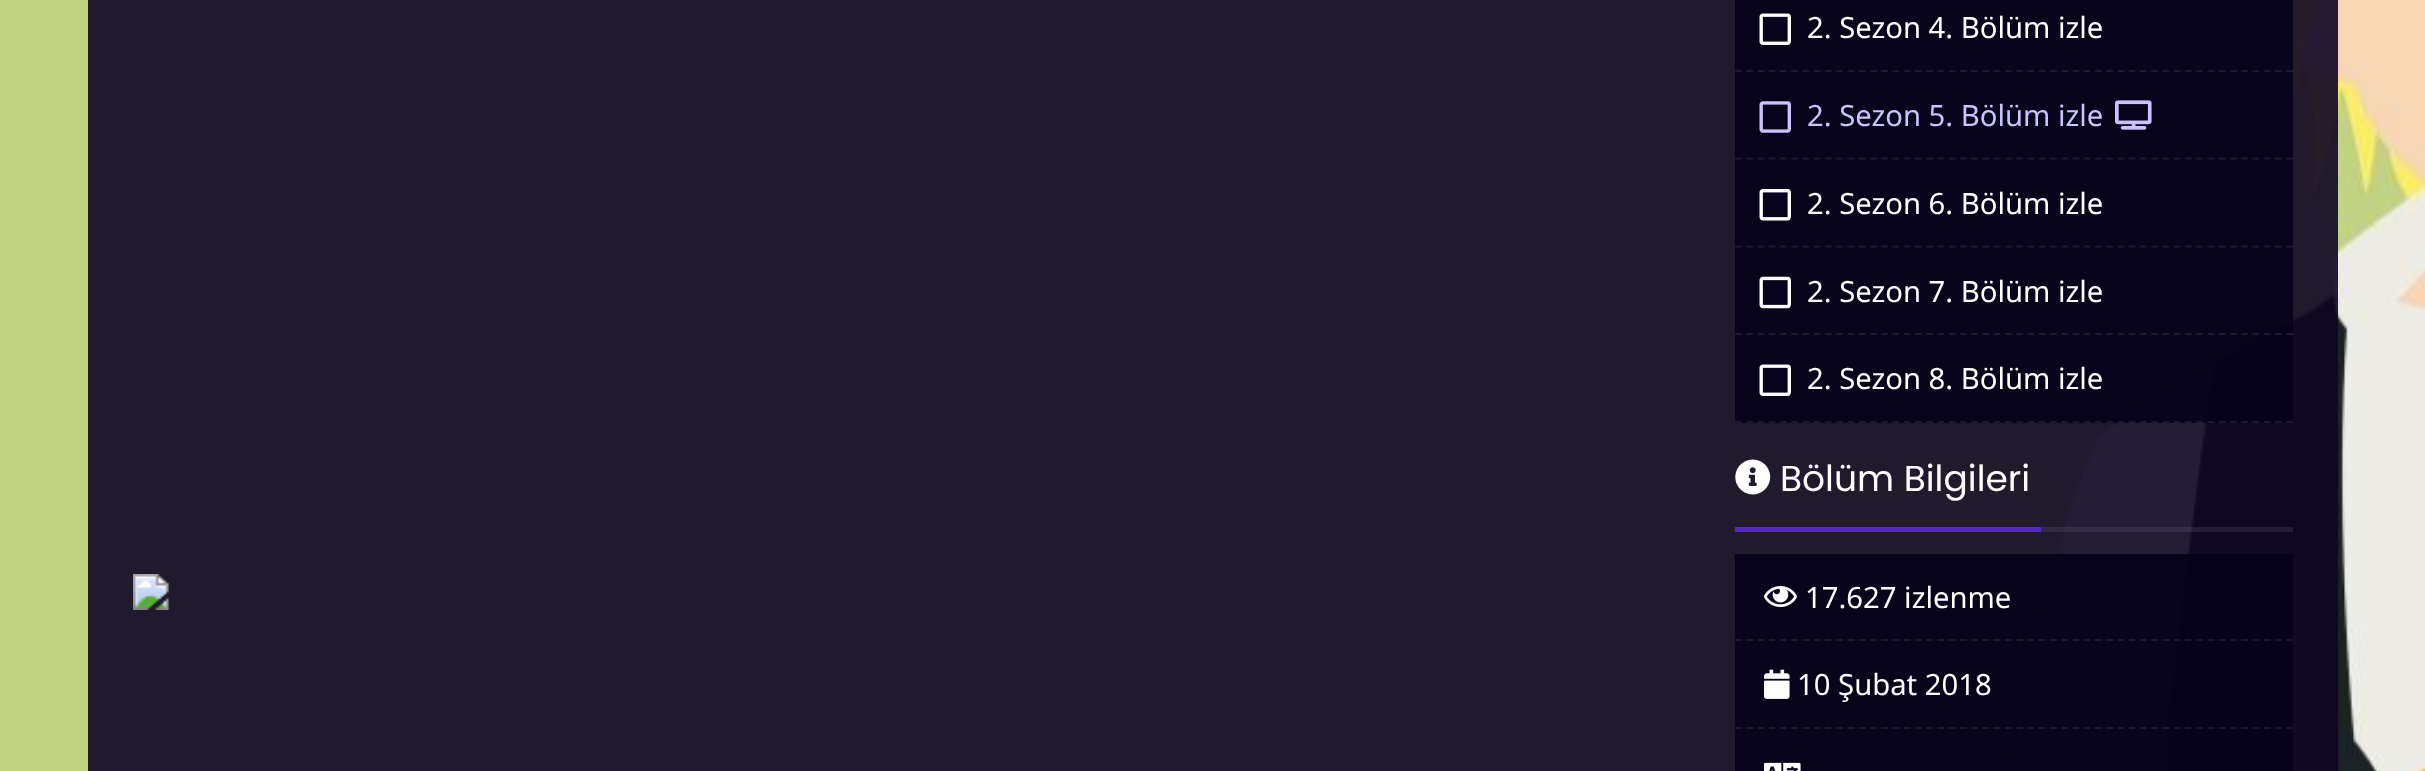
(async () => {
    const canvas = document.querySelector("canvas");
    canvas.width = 2425;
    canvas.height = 771;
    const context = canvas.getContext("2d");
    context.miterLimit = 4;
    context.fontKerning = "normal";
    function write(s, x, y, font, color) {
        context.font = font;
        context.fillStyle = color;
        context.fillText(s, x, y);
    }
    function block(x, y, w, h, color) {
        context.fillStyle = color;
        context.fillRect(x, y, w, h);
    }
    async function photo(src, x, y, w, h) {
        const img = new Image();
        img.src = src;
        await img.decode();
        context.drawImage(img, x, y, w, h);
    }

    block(0, 0, 2425, 771, "rgb(255, 255, 255)");
    await photo("media/1.png", 0, 0, 2425, 771);
    await photo("media/2.png", 133, 574, 36, 36);
    block(1735, 0, 558, 423, "rgba(5, 1, 26, 0.88)");
    context.beginPath();
    context.moveTo(1735, 71);
    context.lineTo(2293, 71);
    context.strokeStyle = "rgb(28, 23, 51)";
    context.lineWidth = 2.2;
    context.setLineDash([6.75, 4.5]);
    context.stroke();
    await photo("media/3.png", 1759, 13, 32, 32);
    write("2. Sezon 4. Bölüm izle", 1807, 38, "29.25px Noto Sans", "rgb(255, 255, 255)");
    context.beginPath();
    context.moveTo(1735, 158.5);
    context.lineTo(2293, 158.5);
    context.stroke();
    await photo("media/4.png", 1759, 101, 32, 32);
    write("2. Sezon 5. Bölüm izle", 1807, 126, "29.25px Noto Sans", "rgb(205, 194, 255)");
    await photo("media/5.png", 2115, 100, 37, 30);
    context.beginPath();
    context.moveTo(1735, 246.5);
    context.lineTo(2293, 246.5);
    context.stroke();
    await photo("media/6.png", 1759, 189, 32, 32);
    write("2. Sezon 6. Bölüm izle", 1807, 214, "29.25px Noto Sans", "rgb(255, 255, 255)");
    context.beginPath();
    context.moveTo(1735, 334);
    context.lineTo(2293, 334);
    context.stroke();
    await photo("media/7.png", 1759, 276, 32, 33);
    write("2. Sezon 7. Bölüm izle", 1807, 302, "29.25px Noto Sans", "rgb(255, 255, 255)");
    context.beginPath();
    context.moveTo(1735, 422);
    context.lineTo(2293, 422);
    context.strokeStyle = "rgba(205, 194, 255, 0.1)";
    context.stroke();
    await photo("media/3.png", 1759, 364, 32, 32);
    write("2. Sezon 8. Bölüm izle", 1807, 389, "29.25px Noto Sans", "rgb(255, 255, 255)");
    block(2041, 527, 252, 5, "rgba(205, 194, 255, 0.1)");
    block(1735, 527, 306, 5, "rgb(82, 41, 204)");
    await photo("media/8.png", 1735, 459, 36, 36);
    write("Bölüm Bilgileri", 1780, 491, "36px Poppins", "rgb(255, 255, 255)");
    block(1735, 554, 558, 217, "rgba(5, 1, 26, 0.88)");
    context.beginPath();
    context.moveTo(1735, 640);
    context.lineTo(2293, 640);
    context.stroke();
    await photo("media/9.png", 1764, 586, 33, 21);
    write("17.627 izlenme", 1805, 608, "29.25px Noto Sans", "rgb(255, 255, 255)");
    context.beginPath();
    context.moveTo(1735, 728);
    context.lineTo(2293, 728);
    context.stroke();
    await photo("media/10.png", 1764, 669, 26, 30);
    write("10 Şubat 2018", 1797, 695, "29.25px Noto Sans", "rgb(255, 255, 255)");
    await photo("media/11.png", 1764, 762, 37, 9);
})();
